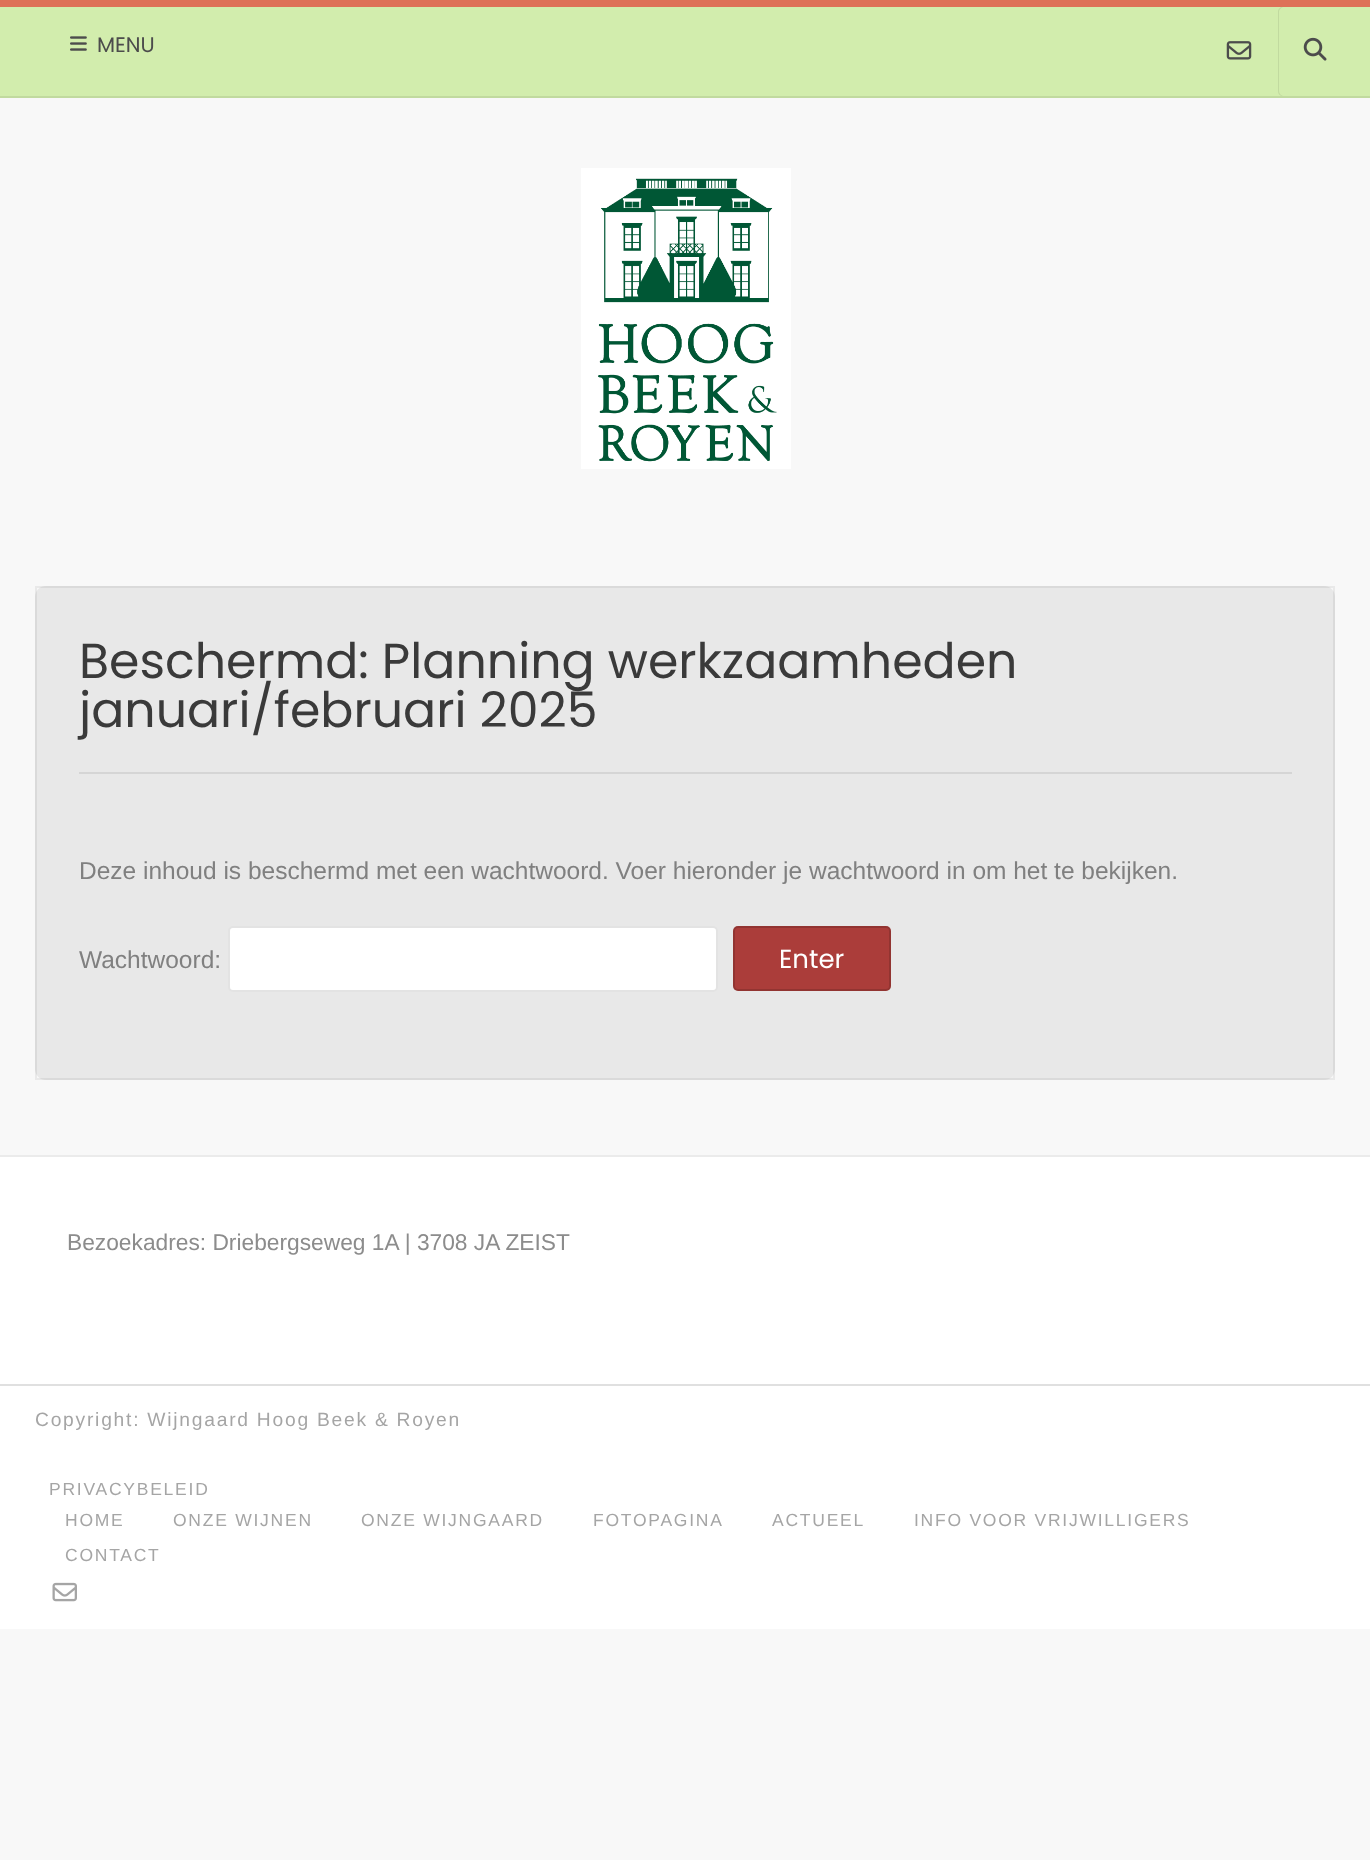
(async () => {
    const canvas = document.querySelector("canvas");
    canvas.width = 1370;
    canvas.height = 1860;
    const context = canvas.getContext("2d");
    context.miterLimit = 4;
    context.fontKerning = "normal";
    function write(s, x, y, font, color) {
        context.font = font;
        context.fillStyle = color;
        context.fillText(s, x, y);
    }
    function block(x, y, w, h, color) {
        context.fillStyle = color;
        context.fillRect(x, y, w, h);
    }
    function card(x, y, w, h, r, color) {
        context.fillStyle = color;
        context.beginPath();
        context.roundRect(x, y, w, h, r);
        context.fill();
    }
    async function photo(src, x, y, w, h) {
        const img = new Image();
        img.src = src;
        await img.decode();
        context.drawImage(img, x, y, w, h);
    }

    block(0, 0, 1370, 1860, "rgb(248, 248, 248)");
    block(0, 0, 1370, 7, "rgb(222, 113, 88)");
    block(0, 7, 1370, 89, "rgb(210, 237, 173)");
    block(0, 96, 1370, 2, "rgb(193, 218, 159)");
    await photo("media/1.png", 70, 36, 17, 15);
    write("MENU", 97, 52, "21px Poppins", "rgb(76, 76, 76)");
    await photo("media/2.png", 1226, 41, 26, 19);
    context.fillStyle = "rgb(193, 218, 159)";
    context.beginPath();
    context.moveTo(1283, 7);
    context.bezierCurveTo(1280, 7, 1278, 9, 1278, 12);
    context.lineTo(1278, 91);
    context.bezierCurveTo(1278, 94, 1280, 96, 1283, 96);
    context.lineTo(1284, 96);
    context.bezierCurveTo(1282, 96, 1279, 94, 1279, 91);
    context.lineTo(1279, 12);
    context.bezierCurveTo(1279, 9, 1282, 7, 1284, 7);
    context.closePath();
    context.fill();
    await photo("media/3.png", 1303, 37, 24, 24);
    await photo("media/4.png", 581, 168, 210, 301);
    card(35, 586, 1300, 494, 11, "rgb(232, 232, 232)");
    context.strokeStyle = "rgba(0, 0, 0, 0.06)";
    context.lineWidth = 2;
    context.strokeRect(36, 587, 1298, 492);
    block(79, 772, 1213, 2, "rgb(213, 213, 213)");
    write("Beschermd: Planning werkzaamheden", 79, 678, "49px Poppins", "rgb(58, 58, 58)");
    write("januari/februari 2025", 79, 727, "49px Poppins", "rgb(58, 58, 58)");
    write("Deze inhoud is beschermd met een wachtwoord. Voer hieronder je wachtwoord in om het te bekijken.", 79, 879, "24.5px Liberation Sans", "rgb(128, 128, 128)");
    write("Wachtwoord:", 79, 968, "24.5px Liberation Sans", "rgb(128, 128, 128)");
    context.fillStyle = "rgb(255, 255, 255)";
    context.beginPath();
    context.roundRect(229, 927, 488, 64, 4);
    context.fill();
    context.strokeStyle = "rgb(227, 227, 227)";
    context.stroke();
    card(733, 926, 158, 65, 5, "rgb(171, 61, 58)");
    context.beginPath();
    context.roundRect(734, 927, 156, 63, 4);
    context.strokeStyle = "rgba(0, 0, 0, 0.14)";
    context.stroke();
    write("Enter", 779, 968, "26px Poppins", "rgb(255, 255, 255)");
    block(0, 1157, 1370, 227, "rgb(255, 255, 255)");
    block(0, 1155, 1370, 2, "rgb(235, 235, 235)");
    write("Bezoekadres: Driebergseweg 1A | 3708 JA ZEIST", 67, 1250, "22.75px Liberation Sans", "rgb(140, 140, 140)");
    block(0, 1386, 1370, 243, "rgb(255, 255, 255)");
    block(0, 1384, 1370, 2, "rgb(224, 224, 224)");
    context.letterSpacing = "1.75px";
    write("Copyright: Wijngaard Hoog Beek & Royen", 35, 1426, "19.25px Liberation Sans", "rgb(165, 165, 165)");
    write("PRIVACYBELEID", 49, 1495, "17.5px Liberation Sans", "rgb(165, 165, 165)");
    write("HOME", 65, 1526, "17.5px Liberation Sans", "rgb(165, 165, 165)");
    write("ONZE WIJNEN", 173, 1526, "17.5px Liberation Sans", "rgb(165, 165, 165)");
    write("ONZE WIJNGAARD", 361, 1526, "17.5px Liberation Sans", "rgb(165, 165, 165)");
    write("FOTOPAGINA", 593, 1526, "17.5px Liberation Sans", "rgb(165, 165, 165)");
    write("ACTUEEL", 772, 1526, "17.5px Liberation Sans", "rgb(165, 165, 165)");
    write("INFO VOOR VRIJWILLIGERS", 914, 1526, "17.5px Liberation Sans", "rgb(165, 165, 165)");
    write("CONTACT", 65, 1561, "17.5px Liberation Sans", "rgb(165, 165, 165)");
    await photo("media/5.png", 52, 1582, 25, 20);
})();
